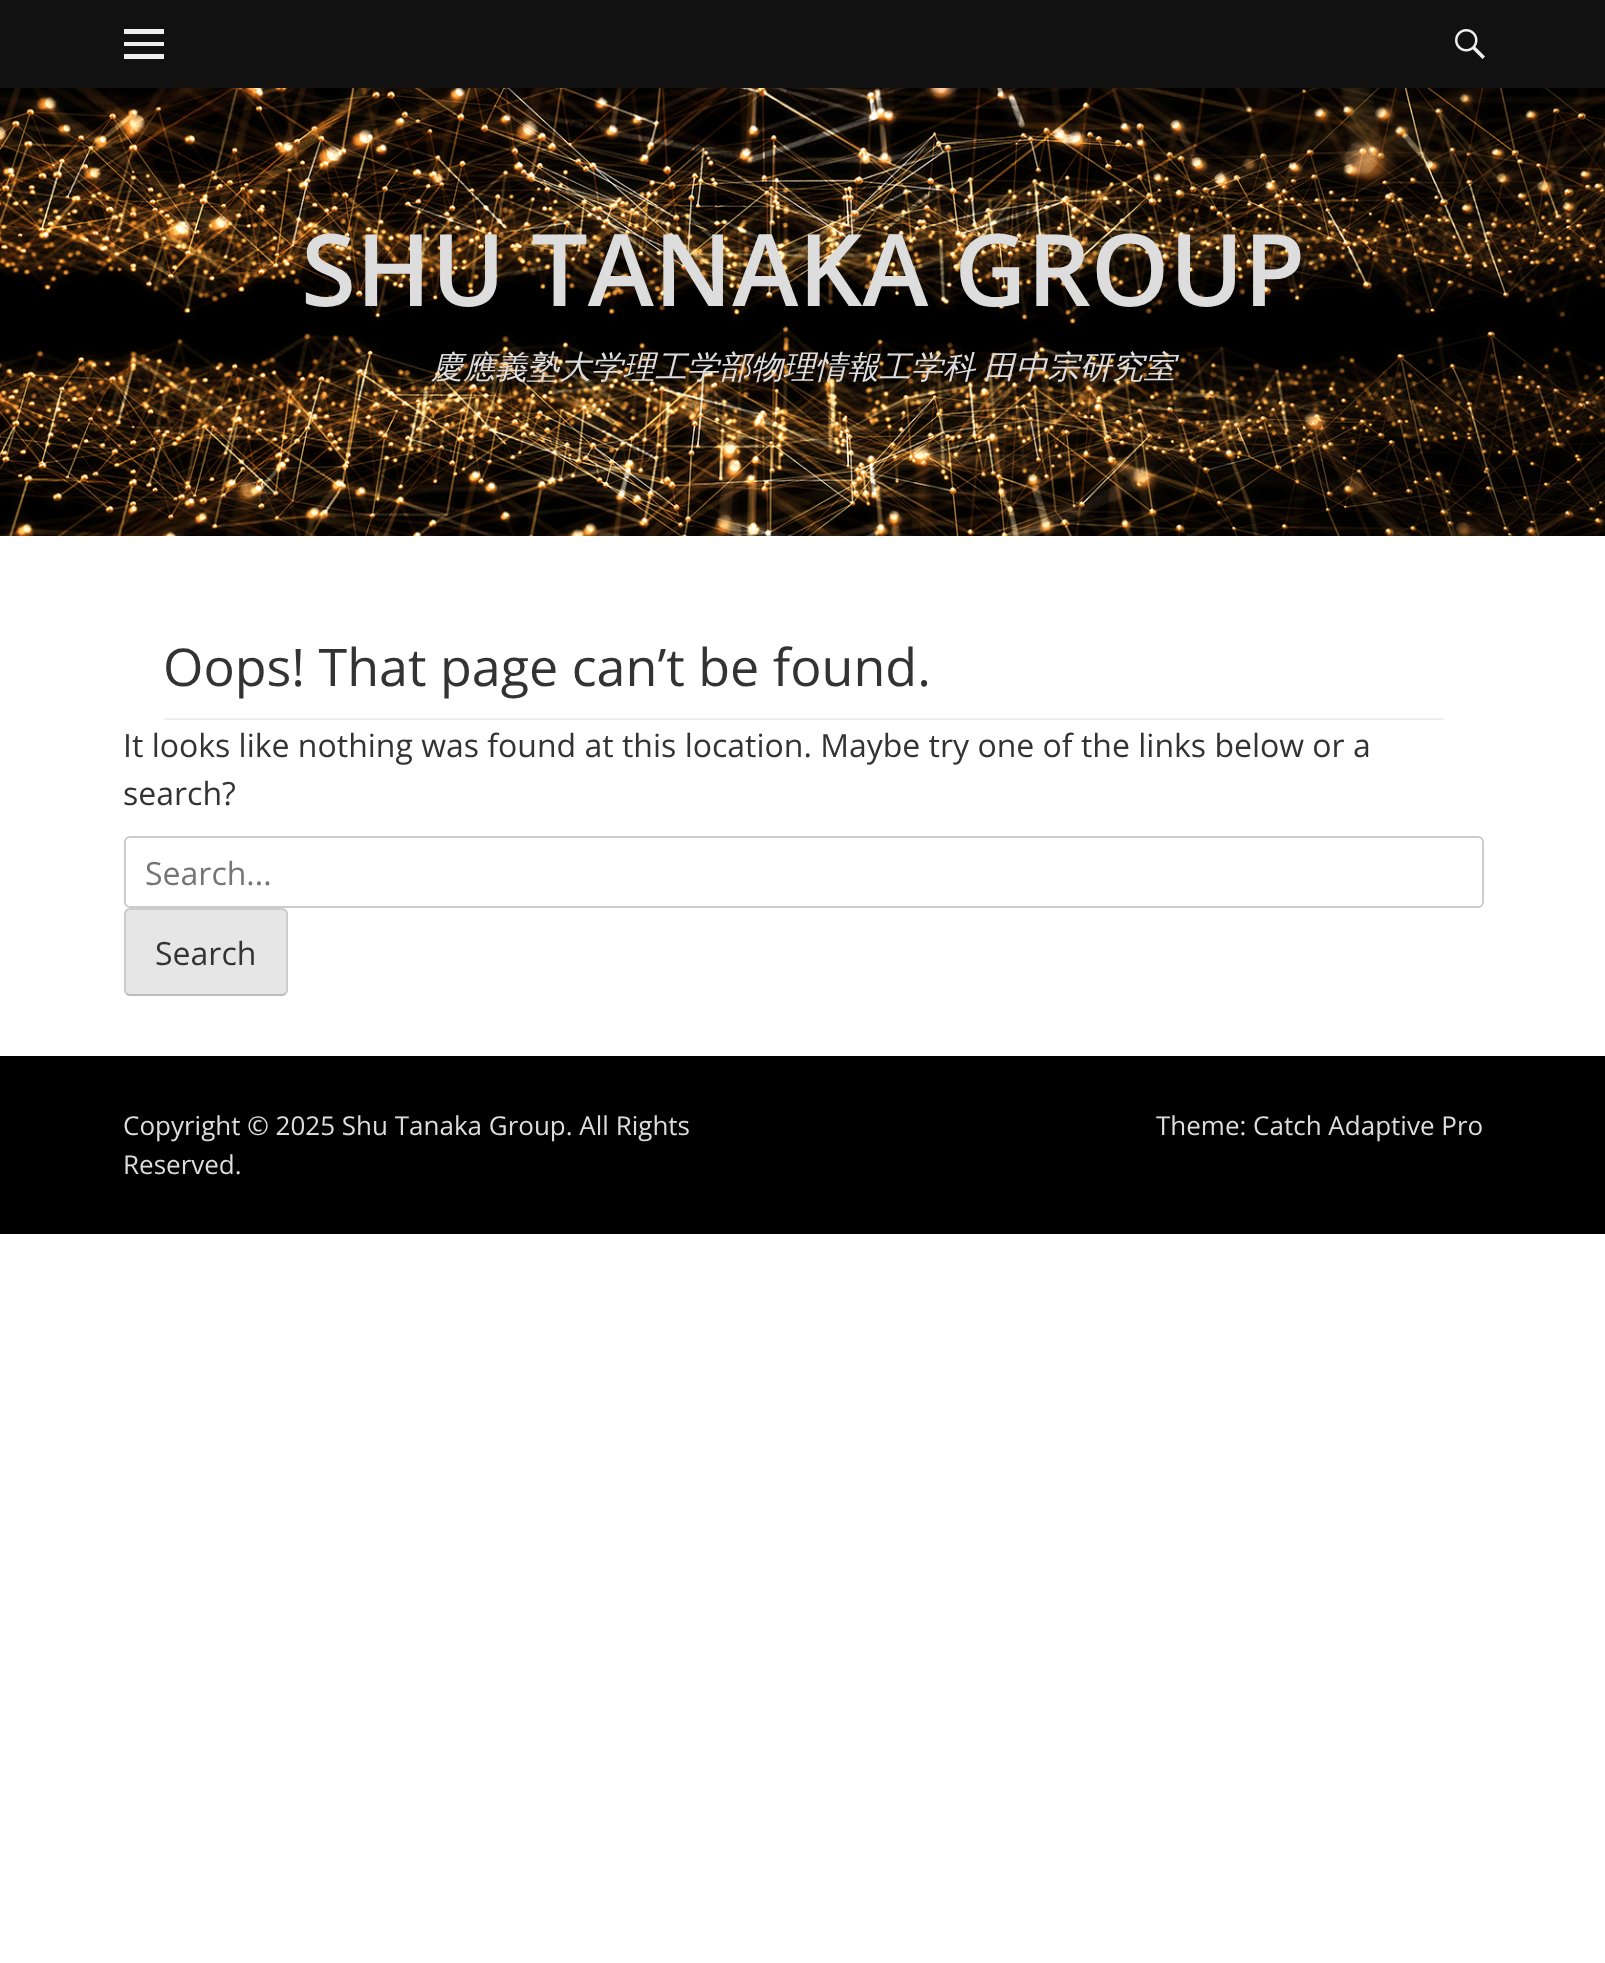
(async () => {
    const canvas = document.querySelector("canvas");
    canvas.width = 1605;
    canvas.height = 1963;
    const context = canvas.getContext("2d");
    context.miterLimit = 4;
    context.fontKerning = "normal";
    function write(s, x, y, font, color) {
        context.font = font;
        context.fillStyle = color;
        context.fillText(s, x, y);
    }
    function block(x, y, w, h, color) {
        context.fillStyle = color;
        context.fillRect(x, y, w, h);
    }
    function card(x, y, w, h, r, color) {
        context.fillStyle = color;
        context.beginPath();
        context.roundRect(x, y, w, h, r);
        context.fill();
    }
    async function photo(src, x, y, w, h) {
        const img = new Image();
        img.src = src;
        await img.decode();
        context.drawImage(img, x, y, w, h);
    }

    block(0, 0, 1605, 1963, "rgb(255, 255, 255)");
    block(0, 0, 1605, 88, "rgb(17, 17, 17)");
    context.fillStyle = "rgb(238, 238, 238)";
    context.beginPath();
    context.moveTo(124, 59);
    context.lineTo(124, 54);
    context.lineTo(164, 54);
    context.lineTo(164, 59);
    context.closePath();
    context.moveTo(124, 29);
    context.lineTo(164, 29);
    context.lineTo(164, 34);
    context.lineTo(124, 34);
    context.closePath();
    context.moveTo(124, 46);
    context.lineTo(124, 42);
    context.lineTo(164, 42);
    context.lineTo(164, 46);
    context.closePath();
    context.fill();
    await photo("media/1.png", 1455, 29, 30, 30);
    await photo("media/2.png", 0, 88, 1605, 448);
    write("SHU TANAKA GROUP", 301, 306, "600 100px Open Sans", "rgb(221, 221, 221)");
    context.wordSpacing = "-1px";
    write("慶應義塾大学理工学部物理情報工学科 田中宗研究室", 431, 378, "italic 500 32px WenQuanYi Zen Hei", "rgb(221, 221, 221)");
    block(164, 718, 1280, 2, "rgb(238, 238, 238)");
    context.wordSpacing = "0px";
    write("Oops! That page can’t be found.", 163, 686, "52px Open Sans", "rgb(51, 51, 51)");
    write("It looks like nothing was found at this location. Maybe try one of the links below or a", 123, 757, "32px Open Sans", "rgb(51, 51, 51)");
    write("search?", 123, 805, "32px Open Sans", "rgb(51, 51, 51)");
    context.beginPath();
    context.roundRect(125, 837, 1358, 70, 5);
    context.strokeStyle = "rgb(204, 204, 204)";
    context.lineWidth = 2;
    context.stroke();
    write("Search...", 145, 885, "32px Open Sans", "rgb(117, 117, 117)");
    card(124, 908, 164, 88, 6, "rgb(230, 230, 230)");
    context.beginPath();
    context.moveTo(285.5, 993.5);
    context.bezierCurveTo(284.5, 994.5, 283.5, 995, 282, 995);
    context.lineTo(130, 995);
    context.bezierCurveTo(128.5, 995, 127.5, 994.5, 126.5, 993.5);
    context.strokeStyle = "rgb(187, 187, 187)";
    context.stroke();
    context.beginPath();
    context.moveTo(126.5, 993.5);
    context.bezierCurveTo(125.5, 992.5, 125, 991.5, 125, 990);
    context.lineTo(125, 914);
    context.bezierCurveTo(125, 912.5, 125.5, 911.5, 126.5, 910.5);
    context.bezierCurveTo(127.5, 909.5, 128.5, 909, 130, 909);
    context.lineTo(282, 909);
    context.bezierCurveTo(283.5, 909, 284.5, 909.5, 285.5, 910.5);
    context.bezierCurveTo(286.5, 911.5, 287, 912.5, 287, 914);
    context.lineTo(287, 990);
    context.bezierCurveTo(287, 991.5, 286.5, 992.5, 285.5, 993.5);
    context.strokeStyle = "rgb(204, 204, 204)";
    context.stroke();
    write("Search", 155, 965, "32px Open Sans", "rgb(51, 51, 51)");
    block(0, 1056, 1605, 178, "rgb(0, 0, 0)");
    write("Copyright © 2025 Shu Tanaka Group. All Rights", 123, 1135, "26px Open Sans", "rgb(221, 221, 221)");
    write("Reserved.", 123, 1174, "26px Open Sans", "rgb(221, 221, 221)");
    write("Theme: Catch Adaptive Pro", 1156, 1135, "26px Open Sans", "rgb(221, 221, 221)");
})();
